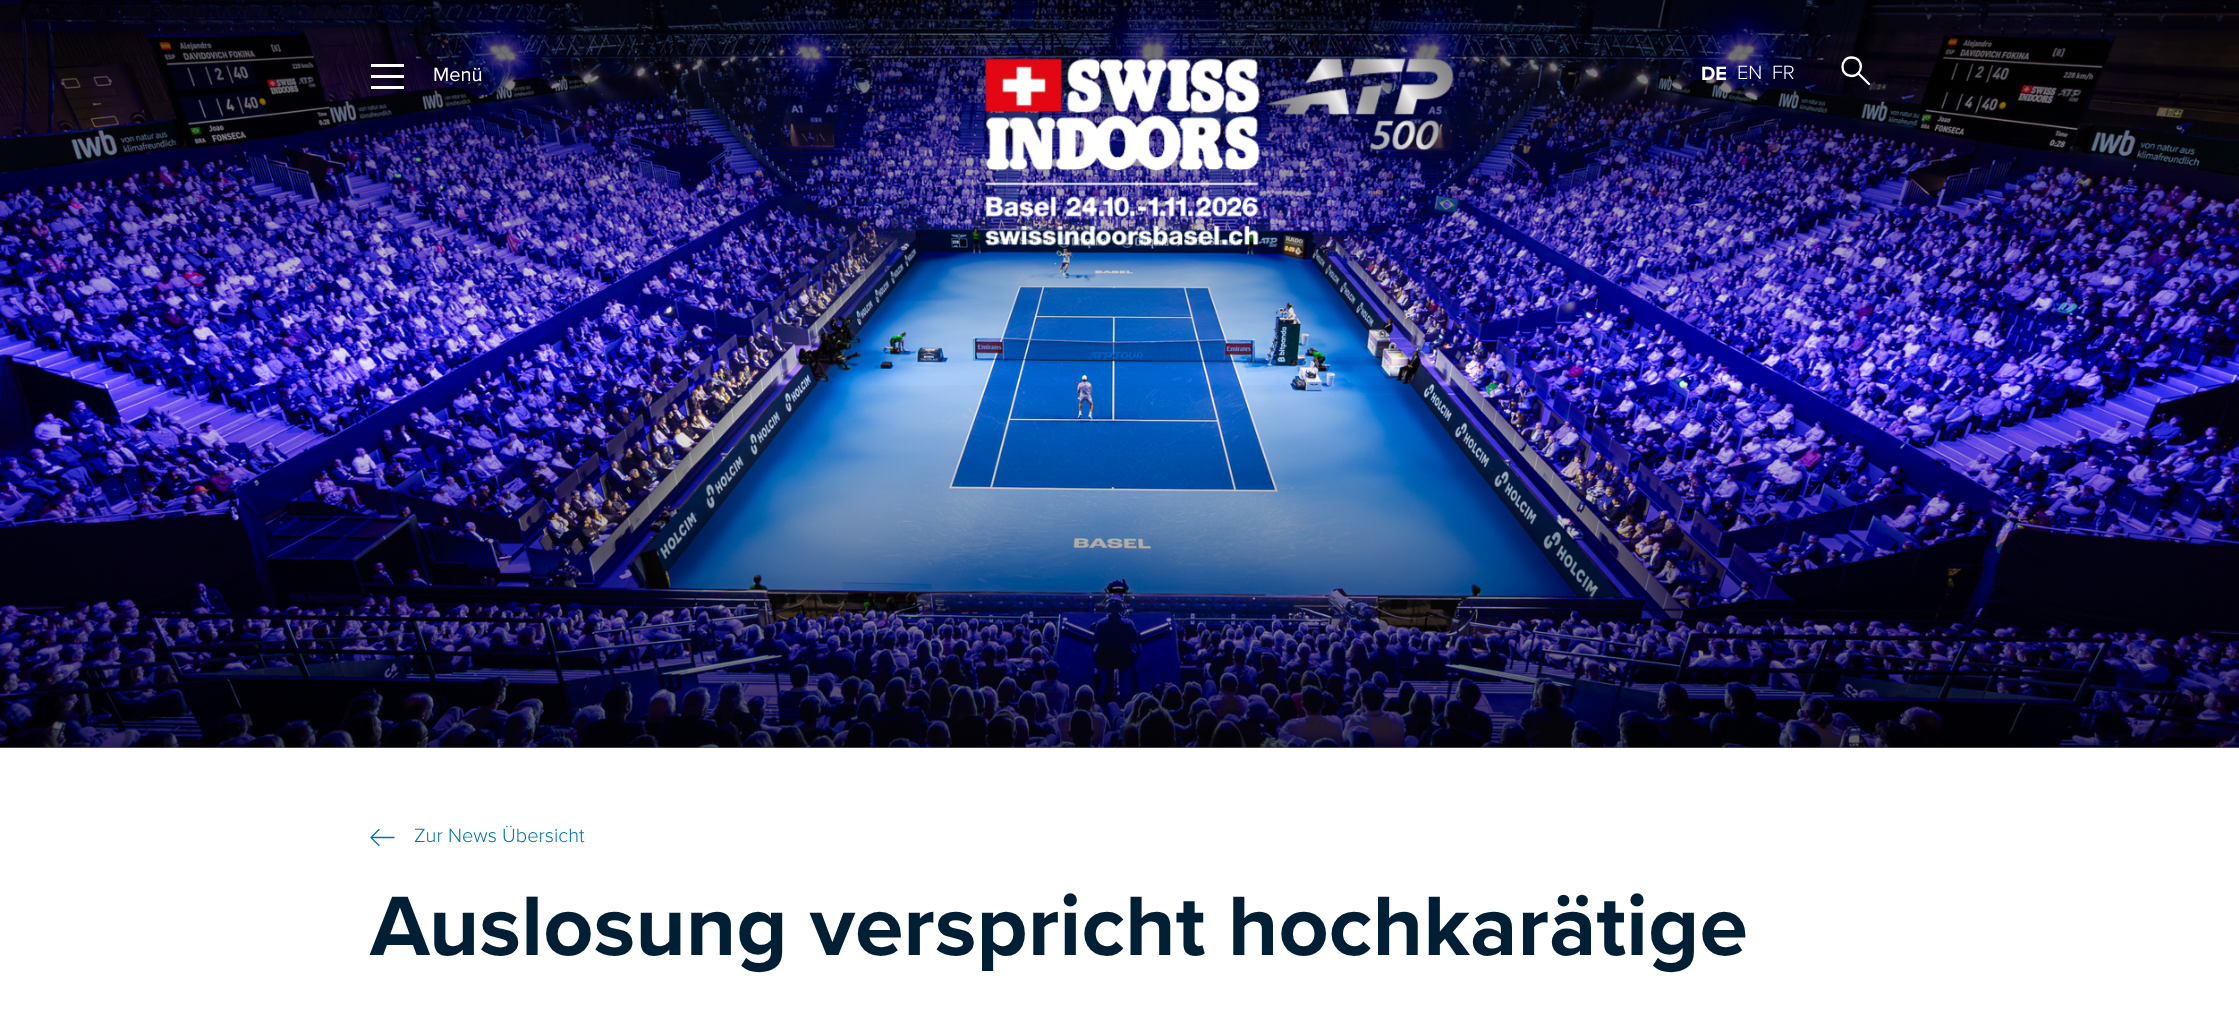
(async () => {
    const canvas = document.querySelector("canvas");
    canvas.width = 2239;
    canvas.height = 1023;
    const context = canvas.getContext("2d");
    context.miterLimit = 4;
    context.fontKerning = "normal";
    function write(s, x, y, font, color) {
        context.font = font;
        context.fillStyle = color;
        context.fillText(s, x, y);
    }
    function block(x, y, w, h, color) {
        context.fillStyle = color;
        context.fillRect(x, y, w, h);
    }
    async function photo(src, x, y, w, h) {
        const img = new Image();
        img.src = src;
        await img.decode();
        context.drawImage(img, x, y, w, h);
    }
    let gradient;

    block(0, 0, 2239, 1023, "rgb(255, 255, 255)");
    await photo("media/2.png", 0, 0, 2239, 748);
    block(371, 64, 33, 3, "rgb(255, 255, 255)");
    block(371, 75, 33, 3, "rgb(255, 255, 255)");
    block(371, 86, 33, 3, "rgb(255, 255, 255)");
    write("Menü", 433, 81, "20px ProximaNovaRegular", "rgb(255, 255, 255)");
    await photo("media/1.png", 985, 58, 469, 188);
    write("DE", 1701, 80, "20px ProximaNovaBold", "rgb(255, 255, 255)");
    write("EN", 1737, 79, "20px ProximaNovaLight", "rgb(255, 255, 255)");
    write("FR", 1772, 79, "20px ProximaNovaLight", "rgb(255, 255, 255)");
    context.beginPath();
    context.moveTo(1851.5, 76);
    context.bezierCurveTo(1864, 75.5, 1864, 57.5, 1851.5, 57.5);
    context.bezierCurveTo(1839.5, 57.5, 1839.5, 76, 1851.5, 76);
    context.closePath();
    context.moveTo(1858, 73);
    context.lineTo(1869, 84);
    context.strokeStyle = "rgb(255, 255, 255)";
    context.lineWidth = 2.3;
    context.lineCap = "round";
    context.lineJoin = "round";
    context.stroke();
    gradient = context.createLinearGradient(1120, 748, 1120, 373);
    gradient.addColorStop(0, "rgba(0, 0, 0, 0.65)");
    gradient.addColorStop(1, "rgba(0, 0, 0, 0)");
    context.fillStyle = gradient;
    context.fillRect(0, 385, 2239, 363);
    context.beginPath();
    context.moveTo(394, 837.5);
    context.lineTo(371, 837.5);
    context.moveTo(379, 829.5);
    context.lineTo(371, 837.5);
    context.lineTo(379, 845.5);
    context.strokeStyle = "rgb(0, 116, 175)";
    context.lineWidth = 1.3;
    context.stroke();
    write("Zur News Übersicht", 414, 842, "20px ProximaNovaLight", "rgb(0, 116, 175)");
    write("Auslosung verspricht hochkarätige", 370, 955, "87.5px ProximaNovaBold", "rgb(0, 30, 52)");
})();
